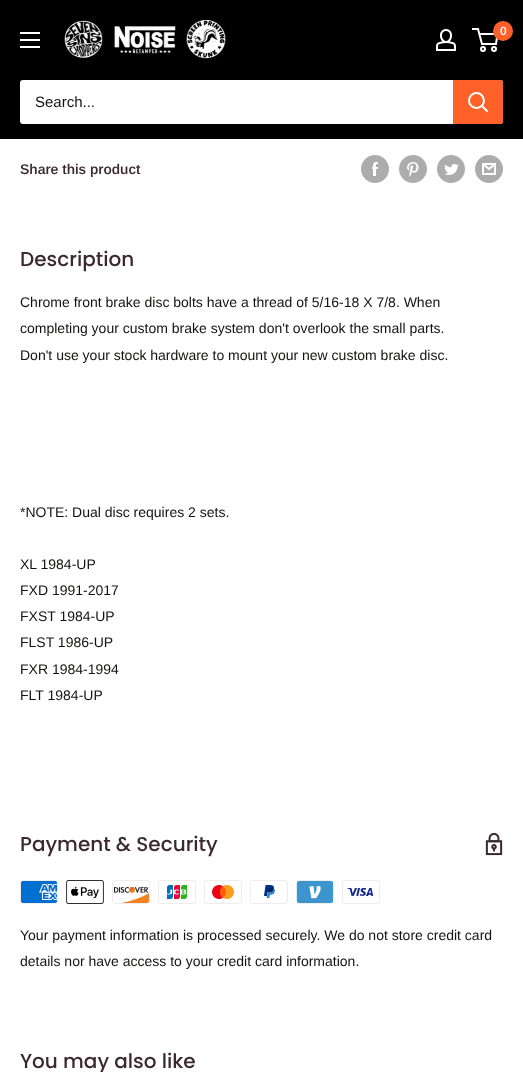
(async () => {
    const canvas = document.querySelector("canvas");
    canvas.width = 523;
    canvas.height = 1072;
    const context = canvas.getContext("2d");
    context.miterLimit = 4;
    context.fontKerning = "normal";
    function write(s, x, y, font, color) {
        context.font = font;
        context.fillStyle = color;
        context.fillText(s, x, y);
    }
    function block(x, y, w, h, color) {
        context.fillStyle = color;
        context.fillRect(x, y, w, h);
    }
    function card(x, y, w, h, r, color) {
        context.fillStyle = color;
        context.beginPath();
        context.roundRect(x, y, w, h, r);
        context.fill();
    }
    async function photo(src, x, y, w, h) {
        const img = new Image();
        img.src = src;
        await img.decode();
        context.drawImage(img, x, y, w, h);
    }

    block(0, 0, 523, 1072, "rgb(255, 255, 255)");
    block(0, 0, 523, 139, "rgb(0, 0, 0)");
    await photo("media/1.png", 64, 20, 162, 39);
    await photo("media/2.png", 436, 29, 20, 22);
    context.beginPath();
    context.arc(483, 49, 2, 0, Math.PI * 2);
    context.strokeStyle = "rgb(255, 255, 255)";
    context.lineWidth = 2;
    context.stroke();
    context.beginPath();
    context.arc(494, 49, 2, 0, Math.PI * 2);
    context.stroke();
    context.beginPath();
    context.moveTo(479.5, 34);
    context.lineTo(497.5, 34);
    context.lineTo(496, 44);
    context.lineTo(482, 44);
    context.lineTo(478, 29);
    context.lineTo(472, 29);
    context.stroke();
    context.fillStyle = "rgb(255, 97, 40)";
    context.beginPath();
    context.arc(503, 31, 10, 0, Math.PI * 2);
    context.fill();
    write("0", 500, 35, "600 12px Arimo", "rgb(255, 255, 255)");
    await photo("media/3.png", 20, 32, 20, 16);
    card(20, 80, 483, 44, 3, "rgb(255, 255, 255)");
    write("Search...", 35, 107, "15px Arimo", "rgb(18, 18, 16)");
    context.fillStyle = "rgb(255, 97, 40)";
    context.beginPath();
    context.roundRect(453, 80, 50, 44, [0, 3, 3, 0]);
    context.fill();
    context.beginPath();
    context.moveTo(487, 111);
    context.lineTo(482, 106);
    context.lineCap = "square";
    context.stroke();
    context.beginPath();
    context.arc(476.5, 100.5, 7.5, 0, Math.PI * 2);
    context.stroke();
    write("Share this product", 20, 174, "600 14px Arimo", "rgb(58, 42, 47)");
    await photo("media/4.png", 361, 155, 28, 28);
    await photo("media/5.png", 399, 155, 28, 28);
    await photo("media/6.png", 437, 155, 28, 28);
    await photo("media/7.png", 475, 155, 28, 28);
    write("Description", 20, 266, "500 20px Poppins", "rgb(58, 42, 47)");
    write("Chrome front brake disc bolts have a thread of 5/16-18 X 7/8. When", 20, 307, "14px Arimo", "rgb(18, 18, 16)");
    write("completing your custom brake system don't overlook the small parts.", 20, 333, "14px Arimo", "rgb(18, 18, 16)");
    write("Don't use your stock hardware to mount your new custom brake disc.", 20, 360, "14px Arimo", "rgb(18, 18, 16)");
    write("*NOTE: Dual disc requires 2 sets.", 20, 517, "14px Arimo", "rgb(18, 18, 16)");
    write("XL 1984-UP", 20, 569, "14px Arimo", "rgb(18, 18, 16)");
    write("FXD 1991-2017", 20, 595, "14px Arimo", "rgb(18, 18, 16)");
    write("FXST 1984-UP", 20, 621, "14px Arimo", "rgb(18, 18, 16)");
    write("FLST 1986-UP", 20, 647, "14px Arimo", "rgb(18, 18, 16)");
    write("FXR 1984-1994", 20, 674, "14px Arimo", "rgb(18, 18, 16)");
    write("FLT 1984-UP", 20, 700, "14px Arimo", "rgb(18, 18, 16)");
    write("Payment & Security", 20, 851, "500 20px Poppins", "rgb(58, 42, 47)");
    await photo("media/8.png", 485, 832, 18, 24);
    await photo("media/9.png", 20, 880, 38, 24);
    await photo("media/10.png", 66, 880, 38, 24);
    await photo("media/11.png", 112, 880, 38, 24);
    await photo("media/12.png", 158, 880, 38, 24);
    await photo("media/13.png", 204, 880, 38, 24);
    await photo("media/14.png", 250, 880, 38, 24);
    await photo("media/15.png", 296, 880, 38, 24);
    await photo("media/16.png", 342, 880, 38, 24);
    write("Your payment information is processed securely. We do not store credit card", 20, 940, "14px Arimo", "rgb(18, 18, 16)");
    write("details nor have access to your credit card information.", 20, 966, "14px Arimo", "rgb(18, 18, 16)");
    write("You may also like", 20, 1068, "500 20px Poppins", "rgb(58, 42, 47)");
})();
